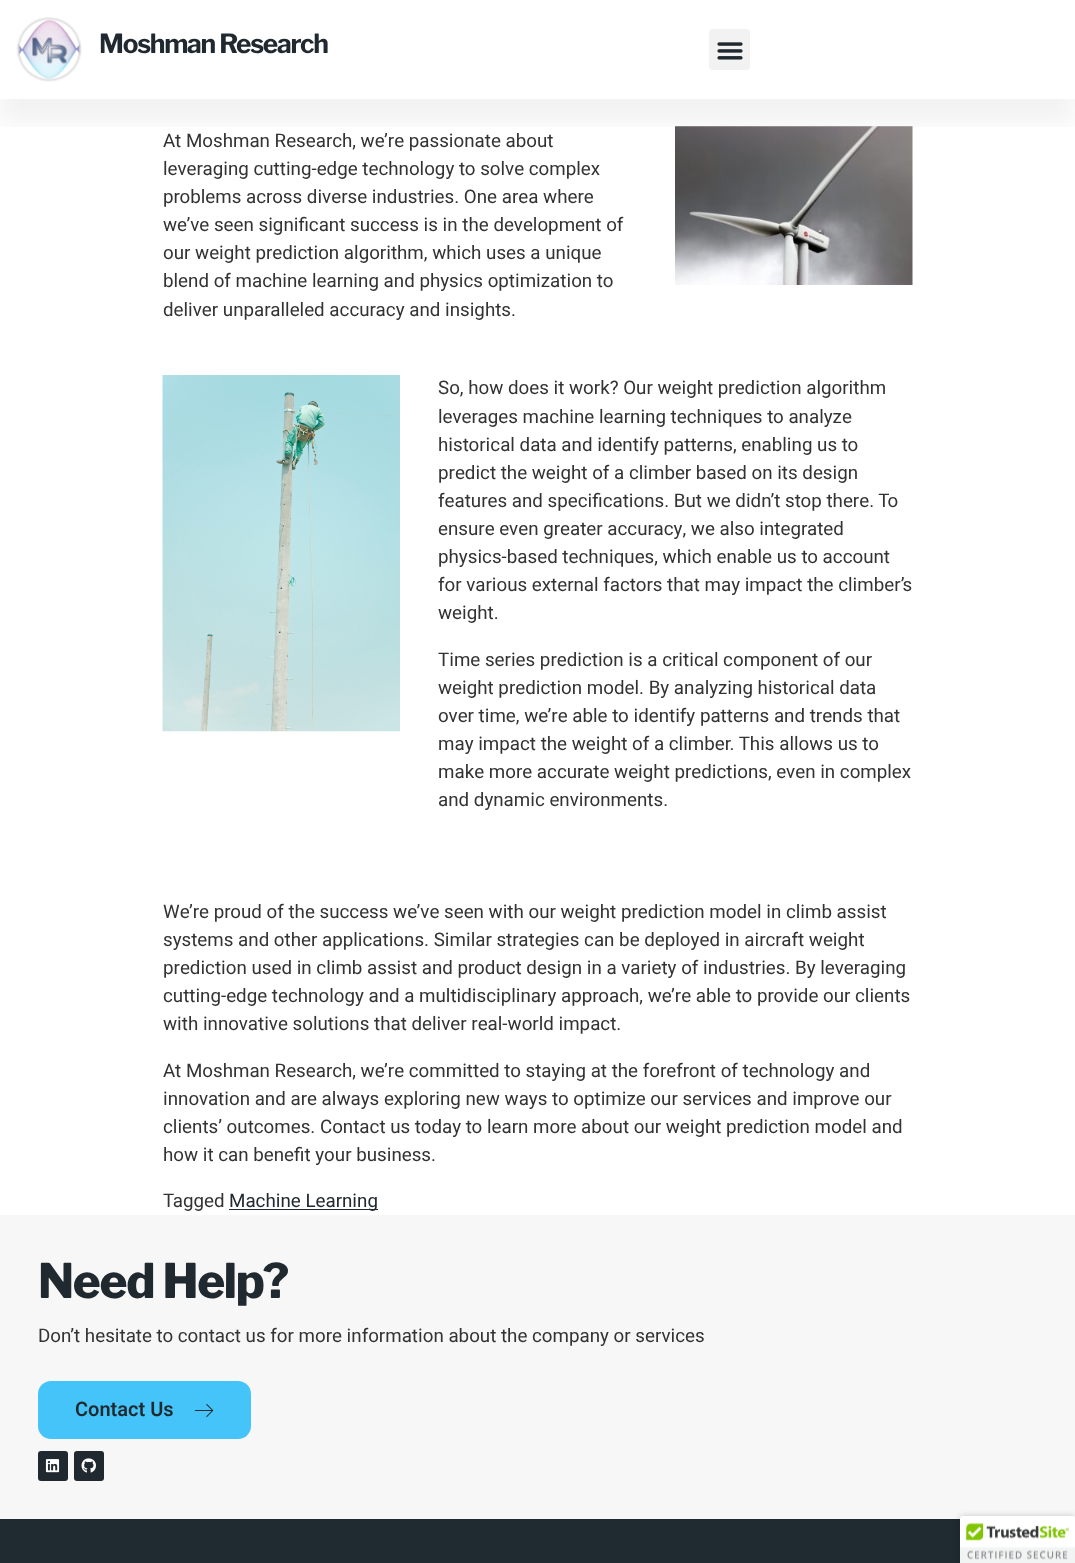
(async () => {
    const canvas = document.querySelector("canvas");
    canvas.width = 1075;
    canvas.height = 1563;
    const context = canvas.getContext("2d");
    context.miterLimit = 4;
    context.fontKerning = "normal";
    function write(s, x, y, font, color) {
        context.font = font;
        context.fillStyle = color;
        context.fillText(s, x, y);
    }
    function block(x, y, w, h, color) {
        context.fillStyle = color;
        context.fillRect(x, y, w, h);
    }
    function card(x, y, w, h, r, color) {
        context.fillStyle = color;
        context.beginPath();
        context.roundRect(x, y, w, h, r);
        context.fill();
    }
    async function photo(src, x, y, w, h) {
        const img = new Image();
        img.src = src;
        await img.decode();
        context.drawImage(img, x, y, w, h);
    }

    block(0, 0, 1075, 1563, "rgb(255, 255, 255)");
    await photo("media/3.png", 675, 126, 238, 159);
    context.save();
    context.beginPath();
    context.rect(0, 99, 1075, 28);
    context.clip();
    context.fillStyle = "rgba(0, 0, 0, 0.05)";
    context.filter = "blur(12.5px)";
    context.beginPath();
    context.rect(0, 25, 1075, 99);
    context.fill();
    context.filter = "none";
    context.restore();
    await photo("media/1.png", 16, 17, 66, 65);
    context.letterSpacing = "-1.25px";
    write("Moshman Research", 99, 53, "bold 26.25px Libre Franklin", "rgb(33, 41, 48)");
    card(709, 29, 41, 41, 4, "rgb(242, 242, 242)");
    await photo("media/2.png", 717, 42, 26, 18);
    context.letterSpacing = "0px";
    write("At Moshman Research, we’re passionate about", 163, 147, "18.75px Heebo", "rgb(51, 51, 51)");
    write("leveraging cutting-edge technology to solve complex", 163, 175, "18.75px Heebo", "rgb(51, 51, 51)");
    write("problems across diverse industries. One area where", 163, 203, "18.75px Heebo", "rgb(51, 51, 51)");
    write("we’ve seen significant success is in the development of", 163, 231, "18.75px Heebo", "rgb(51, 51, 51)");
    write("our weight prediction algorithm, which uses a unique", 163, 259, "18.75px Heebo", "rgb(51, 51, 51)");
    write("blend of machine learning and physics optimization to", 163, 287, "18.75px Heebo", "rgb(51, 51, 51)");
    write("deliver unparalleled accuracy and insights.", 163, 316, "18.75px Heebo", "rgb(51, 51, 51)");
    await photo("media/4.png", 162, 375, 238, 357);
    write("So, how does it work? Our weight prediction algorithm", 438, 394, "18.75px Heebo", "rgb(51, 51, 51)");
    write("leverages machine learning techniques to analyze", 438, 423, "18.75px Heebo", "rgb(51, 51, 51)");
    write("historical data and identify patterns, enabling us to", 438, 451, "18.75px Heebo", "rgb(51, 51, 51)");
    write("predict the weight of a climber based on its design", 438, 479, "18.75px Heebo", "rgb(51, 51, 51)");
    write("features and specifications. But we didn’t stop there. To", 438, 507, "18.75px Heebo", "rgb(51, 51, 51)");
    write("ensure even greater accuracy, we also integrated", 438, 535, "18.75px Heebo", "rgb(51, 51, 51)");
    write("physics-based techniques, which enable us to account", 438, 563, "18.75px Heebo", "rgb(51, 51, 51)");
    write("for various external factors that may impact the climber’s", 438, 591, "18.75px Heebo", "rgb(51, 51, 51)");
    write("weight.", 438, 619, "18.75px Heebo", "rgb(51, 51, 51)");
    write("Time series prediction is a critical component of our", 438, 666, "18.75px Heebo", "rgb(51, 51, 51)");
    write("weight prediction model. By analyzing historical data", 438, 694, "18.75px Heebo", "rgb(51, 51, 51)");
    write("over time, we’re able to identify patterns and trends that", 438, 722, "18.75px Heebo", "rgb(51, 51, 51)");
    write("may impact the weight of a climber. This allows us to", 438, 750, "18.75px Heebo", "rgb(51, 51, 51)");
    write("make more accurate weight predictions, even in complex", 438, 778, "18.75px Heebo", "rgb(51, 51, 51)");
    write("and dynamic environments.", 438, 806, "18.75px Heebo", "rgb(51, 51, 51)");
    write("We’re proud of the success we’ve seen with our weight prediction model in climb assist", 163, 918, "18.75px Heebo", "rgb(51, 51, 51)");
    write("systems and other applications. Similar strategies can be deployed in aircraft weight", 163, 946, "18.75px Heebo", "rgb(51, 51, 51)");
    write("prediction used in climb assist and product design in a variety of industries. By leveraging", 163, 974, "18.75px Heebo", "rgb(51, 51, 51)");
    write("cutting-edge technology and a multidisciplinary approach, we’re able to provide our clients", 163, 1002, "18.75px Heebo", "rgb(51, 51, 51)");
    write("with innovative solutions that deliver real-world impact.", 163, 1030, "18.75px Heebo", "rgb(51, 51, 51)");
    write("At Moshman Research, we’re committed to staying at the forefront of technology and", 163, 1077, "18.75px Heebo", "rgb(51, 51, 51)");
    write("innovation and are always exploring new ways to optimize our services and improve our", 163, 1105, "18.75px Heebo", "rgb(51, 51, 51)");
    write("clients’ outcomes. Contact us today to learn more about our weight prediction model and", 163, 1133, "18.75px Heebo", "rgb(51, 51, 51)");
    write("how it can benefit your business.", 163, 1161, "18.75px Heebo", "rgb(51, 51, 51)");
    write("Tagged", 163, 1207, "18.75px Heebo", "rgb(51, 51, 51)");
    block(229, 1209, 149, 1, "rgb(33, 41, 48)");
    write("Machine Learning", 229, 1207, "18.75px Heebo", "rgb(33, 41, 48)");
    block(0, 1215, 1075, 304, "rgb(247, 247, 247)");
    context.letterSpacing = "-1.25px";
    write("Need Help?", 38, 1298, "800 47.5px Libre Franklin", "rgb(33, 41, 48)");
    context.letterSpacing = "0px";
    write("Don’t hesitate to contact us for more information about the company or services", 38, 1342, "18.75px Heebo", "rgb(51, 51, 51)");
    card(38, 1381, 213, 58, 13, "rgb(68, 196, 248)");
    write("Contact Us", 75, 1416, "600 20px Heebo", "rgb(33, 41, 48)");
    await photo("media/5.png", 194, 1404, 20, 13);
    card(38, 1451, 30, 30, 3, "rgb(33, 41, 48)");
    await photo("media/6.png", 45, 1459, 15, 14);
    card(74, 1451, 30, 30, 3, "rgb(33, 41, 48)");
    await photo("media/7.png", 81, 1458, 15, 15);
    block(0, 1519, 960, 44, "rgb(31, 43, 48)");
    context.fillStyle = "rgba(0, 0, 0, 0.2)";
    context.filter = "blur(3px)";
    context.beginPath();
    context.roundRect(960, 1516, 115, 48, 2.5);
    context.fill();
    context.filter = "none";
    context.fillStyle = "rgb(255, 255, 255)";
    context.beginPath();
    context.moveTo(962.5, 1516);
    context.lineTo(1075, 1516);
    context.lineTo(1075, 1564);
    context.lineTo(960, 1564);
    context.lineTo(960, 1518.5);
    context.bezierCurveTo(960, 1517, 961, 1516, 962.5, 1516);
    context.closePath();
    context.fill();
    await photo("media/8.png", 960, 1516, 115, 47);
})();
